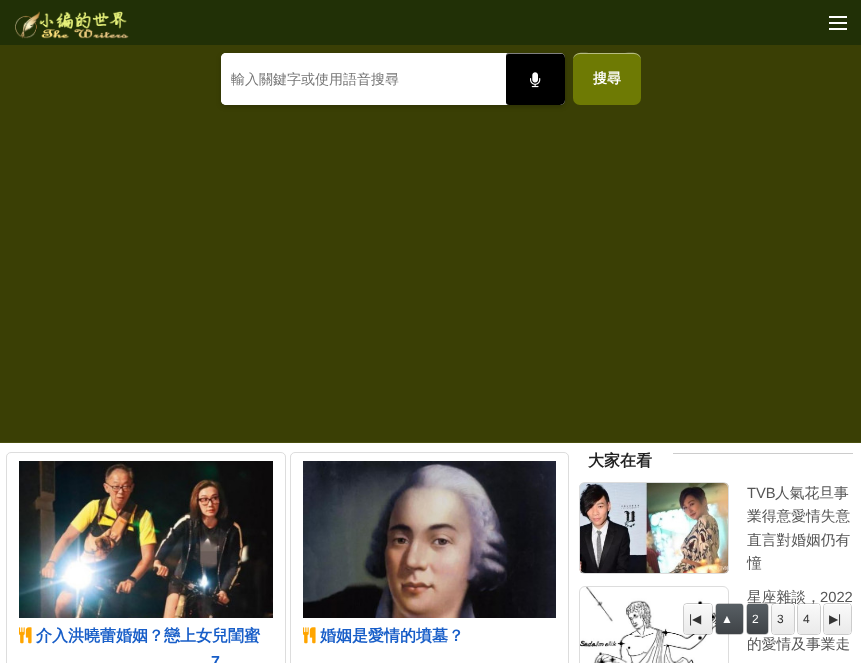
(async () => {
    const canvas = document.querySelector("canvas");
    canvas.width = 861;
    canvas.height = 663;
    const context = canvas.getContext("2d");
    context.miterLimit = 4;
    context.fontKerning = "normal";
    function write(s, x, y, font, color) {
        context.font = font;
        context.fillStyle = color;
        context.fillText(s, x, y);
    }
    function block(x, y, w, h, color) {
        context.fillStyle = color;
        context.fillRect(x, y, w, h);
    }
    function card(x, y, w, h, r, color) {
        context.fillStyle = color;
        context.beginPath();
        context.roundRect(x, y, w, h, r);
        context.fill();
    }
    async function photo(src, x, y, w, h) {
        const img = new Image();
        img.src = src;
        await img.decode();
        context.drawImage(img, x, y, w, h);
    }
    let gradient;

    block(0, 0, 861, 663, "rgb(255, 255, 255)");
    block(0, 0, 861, 45, "rgb(33, 48, 6)");
    await photo("media/1.png", 15, 11, 114, 28);
    block(829, 28, 18, 2, "rgb(255, 255, 255)");
    block(829, 22, 18, 2, "rgb(255, 255, 255)");
    block(829, 16, 18, 2, "rgb(255, 255, 255)");
    block(0, 45, 861, 397, "rgb(58, 63, 5)");
    block(0, 442, 861, 1, "rgb(74, 80, 16)");
    context.fillStyle = "rgba(0, 0, 0, 0.2)";
    context.filter = "blur(2.5px)";
    context.beginPath();
    context.roundRect(221, 55, 344, 52, 5);
    context.fill();
    context.filter = "none";
    card(221, 53, 344, 52, 5, "rgb(255, 255, 255)");
    context.beginPath();
    context.roundRect(221, 53, 285, 52, [5, 0, 0, 5]);
    context.fill();
    context.save();
    context.beginPath();
    context.rect(231, 71, 265, 18);
    context.clip();
    write("輸入關鍵字或使用語音搜尋", 231, 84, "500 14px WenQuanYi Zen Hei", "rgb(117, 117, 117)");
    context.restore();
    context.fillStyle = "rgb(0, 0, 0)";
    context.beginPath();
    context.roundRect(506, 53, 59, 52, [3, 5, 5, 3]);
    context.fill();
    context.fillStyle = "rgba(255, 255, 255, 0.5)";
    context.beginPath();
    context.moveTo(509, 54);
    context.lineTo(563, 54);
    context.bezierCurveTo(562, 53, 561, 53, 560, 53);
    context.lineTo(509, 53);
    context.bezierCurveTo(507, 53, 506, 54, 506, 56);
    context.lineTo(506, 57);
    context.bezierCurveTo(506, 55, 507, 54, 509, 54);
    context.closePath();
    context.fill();
    await photo("media/2.png", 530, 72, 11, 16);
    card(573, 53, 68, 52, 7, "rgb(110, 122, 4)");
    context.fillStyle = "rgba(255, 255, 255, 0.5)";
    context.beginPath();
    context.moveTo(580, 54);
    context.lineTo(634, 54);
    context.bezierCurveTo(638, 54, 641, 57, 641, 61);
    context.bezierCurveTo(641, 51, 632, 53, 625, 53);
    context.lineTo(589, 53);
    context.bezierCurveTo(582, 53, 573, 51, 573, 61);
    context.bezierCurveTo(573, 57, 576, 54, 580, 54);
    context.closePath();
    context.fill();
    write("搜尋", 593, 83, "bold 14px WenQuanYi Zen Hei", "rgb(255, 255, 255)");
    context.fillStyle = "rgba(100, 100, 100, 0.3)";
    context.filter = "blur(0.5px)";
    context.beginPath();
    context.roundRect(6, 453, 280, 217, 5);
    context.fill();
    context.filter = "none";
    context.fillStyle = "rgb(255, 255, 255)";
    context.beginPath();
    context.roundRect(6.5, 452.5, 279, 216, 4.5);
    context.fill();
    context.strokeStyle = "rgb(221, 221, 221)";
    context.stroke();
    await photo("media/3.png", 19, 461, 254, 157);
    await photo("media/4.png", 19, 627, 13, 17);
    write("介入洪曉蕾婚姻？戀上女兒閨蜜", 36, 641, "bold 16px WenQuanYi Zen Hei", "rgb(24, 94, 200)");
    write("7", 211, 667, "bold 16px Liberation Sans", "rgb(24, 94, 200)");
    context.fillStyle = "rgba(100, 100, 100, 0.3)";
    context.filter = "blur(0.5px)";
    context.beginPath();
    context.roundRect(290, 453, 279, 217, 5);
    context.fill();
    context.filter = "none";
    context.fillStyle = "rgb(255, 255, 255)";
    context.beginPath();
    context.roundRect(290.5, 452.5, 278, 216, 4.5);
    context.fill();
    context.stroke();
    await photo("media/5.png", 303, 461, 253, 157);
    await photo("media/4.png", 303, 627, 13, 17);
    write("婚姻是愛情的墳墓？", 320, 641, "bold 16px WenQuanYi Zen Hei", "rgb(24, 94, 200)");
    block(673, 453, 180, 1, "rgb(204, 204, 204)");
    write("大家在看", 588, 466, "bold 16px WenQuanYi Zen Hei", "rgb(34, 34, 34)");
    await photo("media/6.png", 579, 483, 150, 90);
    context.beginPath();
    context.roundRect(579.5, 482.5, 149, 91, 5.5);
    context.stroke();
    write("TVB", 747, 498, "14.75px Liberation Sans", "rgb(85, 85, 85)");
    write("人氣花旦事", 775, 498, "500 14.75px WenQuanYi Zen Hei", "rgb(85, 85, 85)");
    write("業得意愛情失意", 747, 521, "500 14.75px WenQuanYi Zen Hei", "rgb(85, 85, 85)");
    write("直言對婚姻仍有", 747, 545, "500 14.75px WenQuanYi Zen Hei", "rgb(85, 85, 85)");
    write("憧", 747, 568, "500 14.75px WenQuanYi Zen Hei", "rgb(85, 85, 85)");
    await photo("media/7.png", 580, 587, 142, 76);
    context.beginPath();
    context.roundRect(579.5, 586.5, 149, 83, 5.5);
    context.stroke();
    write("星座雜談，", 747, 602, "500 14.75px WenQuanYi Zen Hei", "rgb(85, 85, 85)");
    write("2022", 820, 602, "14.75px Liberation Sans", "rgb(85, 85, 85)");
    write("的愛情及事業走", 747, 649, "500 14.75px WenQuanYi Zen Hei", "rgb(85, 85, 85)");
    context.beginPath();
    context.roundRect(683.5, 603.5, 29, 31, 3.5);
    context.strokeStyle = "rgba(0, 0, 0, 0.2)";
    context.stroke();
    card(684, 604, 28, 30, 3, "rgb(245, 245, 245)");
    context.save();
    context.beginPath();
    context.roundRect(684, 604, 28, 30, 3);
    context.clip();
    gradient = context.createLinearGradient(698, 576, 698, 605);
    gradient.addColorStop(0, "rgb(249, 249, 249)");
    gradient.addColorStop(1, "rgb(234, 234, 234)");
    context.fillStyle = gradient;
    context.fillRect(684, 604, 28, 1);
    gradient = context.createLinearGradient(698, 605, 698, 634);
    gradient.addColorStop(0, "rgb(249, 249, 249)");
    gradient.addColorStop(1, "rgb(234, 234, 234)");
    context.fillStyle = gradient;
    context.beginPath();
    context.roundRect(684, 605, 28, 29, [0, 0, 3, 3]);
    context.fill();
    context.restore();
    block(686, 604, 25, 1, "rgb(255, 255, 255)");
    write("|", 689, 623, "12px Liberation Sans", "rgb(51, 51, 51)");
    write("◀", 692, 623, "12px DejaVu Sans", "rgb(51, 51, 51)");
    context.beginPath();
    context.roundRect(715.5, 603.5, 28, 31, 3.5);
    context.stroke();
    card(716, 604, 27, 30, 3, "rgb(78, 84, 88)");
    context.save();
    context.beginPath();
    context.roundRect(716, 604, 27, 30, 3);
    context.clip();
    gradient = context.createLinearGradient(730, 576, 730, 605);
    gradient.addColorStop(0, "rgb(87, 94, 99)");
    gradient.addColorStop(1, "rgb(63, 67, 71)");
    context.fillStyle = gradient;
    context.fillRect(716, 604, 27, 1);
    gradient = context.createLinearGradient(730, 605, 730, 634);
    gradient.addColorStop(0, "rgb(87, 94, 99)");
    gradient.addColorStop(1, "rgb(63, 67, 71)");
    context.fillStyle = gradient;
    context.beginPath();
    context.roundRect(716, 605, 27, 29, [0, 0, 3, 3]);
    context.fill();
    context.restore();
    block(718, 604, 24, 1, "rgb(87, 94, 99)");
    write("▲", 721, 623, "12px Liberation Sans", "rgb(255, 255, 255)");
    context.beginPath();
    context.roundRect(746.5, 603.5, 22, 31, 3.5);
    context.stroke();
    card(747, 604, 21, 30, 3, "rgb(78, 84, 88)");
    context.save();
    context.beginPath();
    context.roundRect(747, 604, 21, 30, 3);
    context.clip();
    gradient = context.createLinearGradient(758, 576, 758, 605);
    gradient.addColorStop(0, "rgb(87, 94, 99)");
    gradient.addColorStop(1, "rgb(63, 67, 71)");
    context.fillStyle = gradient;
    context.fillRect(747, 604, 21, 1);
    gradient = context.createLinearGradient(758, 605, 758, 634);
    gradient.addColorStop(0, "rgb(87, 94, 99)");
    gradient.addColorStop(1, "rgb(63, 67, 71)");
    context.fillStyle = gradient;
    context.beginPath();
    context.roundRect(747, 605, 21, 29, [0, 0, 3, 3]);
    context.fill();
    context.restore();
    block(749, 604, 18, 1, "rgb(87, 94, 99)");
    write("2", 752, 623, "12px Liberation Sans", "rgb(255, 255, 255)");
    context.beginPath();
    context.roundRect(771.5, 603.5, 23, 31, 3.5);
    context.stroke();
    card(772, 604, 22, 30, 3, "rgb(245, 245, 245)");
    context.save();
    context.beginPath();
    context.roundRect(772, 604, 22, 30, 3);
    context.clip();
    gradient = context.createLinearGradient(783, 576, 783, 605);
    gradient.addColorStop(0, "rgb(249, 249, 249)");
    gradient.addColorStop(1, "rgb(234, 234, 234)");
    context.fillStyle = gradient;
    context.fillRect(772, 604, 22, 1);
    gradient = context.createLinearGradient(783, 605, 783, 634);
    gradient.addColorStop(0, "rgb(249, 249, 249)");
    gradient.addColorStop(1, "rgb(234, 234, 234)");
    context.fillStyle = gradient;
    context.beginPath();
    context.roundRect(772, 605, 22, 29, [0, 0, 3, 3]);
    context.fill();
    context.restore();
    block(774, 604, 19, 1, "rgb(255, 255, 255)");
    write("3", 777, 623, "12px Liberation Sans", "rgb(51, 51, 51)");
    context.beginPath();
    context.roundRect(797.5, 603.5, 23, 31, 3.5);
    context.stroke();
    card(798, 604, 22, 30, 3, "rgb(245, 245, 245)");
    context.save();
    context.beginPath();
    context.roundRect(798, 604, 22, 30, 3);
    context.clip();
    gradient = context.createLinearGradient(809, 576, 809, 605);
    gradient.addColorStop(0, "rgb(249, 249, 249)");
    gradient.addColorStop(1, "rgb(234, 234, 234)");
    context.fillStyle = gradient;
    context.fillRect(798, 604, 22, 1);
    gradient = context.createLinearGradient(809, 605, 809, 634);
    gradient.addColorStop(0, "rgb(249, 249, 249)");
    gradient.addColorStop(1, "rgb(234, 234, 234)");
    context.fillStyle = gradient;
    context.beginPath();
    context.roundRect(798, 605, 22, 29, [0, 0, 3, 3]);
    context.fill();
    context.restore();
    block(800, 604, 19, 1, "rgb(255, 255, 255)");
    write("4", 803, 623, "12px Liberation Sans", "rgb(51, 51, 51)");
    context.beginPath();
    context.roundRect(823.5, 603.5, 28, 31, 3.5);
    context.stroke();
    card(824, 604, 27, 30, 3, "rgb(245, 245, 245)");
    context.save();
    context.beginPath();
    context.roundRect(824, 604, 27, 30, 3);
    context.clip();
    gradient = context.createLinearGradient(838, 576, 838, 605);
    gradient.addColorStop(0, "rgb(249, 249, 249)");
    gradient.addColorStop(1, "rgb(234, 234, 234)");
    context.fillStyle = gradient;
    context.fillRect(824, 604, 27, 1);
    gradient = context.createLinearGradient(838, 605, 838, 634);
    gradient.addColorStop(0, "rgb(249, 249, 249)");
    gradient.addColorStop(1, "rgb(234, 234, 234)");
    context.fillStyle = gradient;
    context.beginPath();
    context.roundRect(824, 605, 27, 29, [0, 0, 3, 3]);
    context.fill();
    context.restore();
    block(826, 604, 24, 1, "rgb(255, 255, 255)");
    write("▶", 829, 623, "12px DejaVu Sans", "rgb(51, 51, 51)");
    write("|", 838, 623, "12px Liberation Sans", "rgb(51, 51, 51)");
})();
